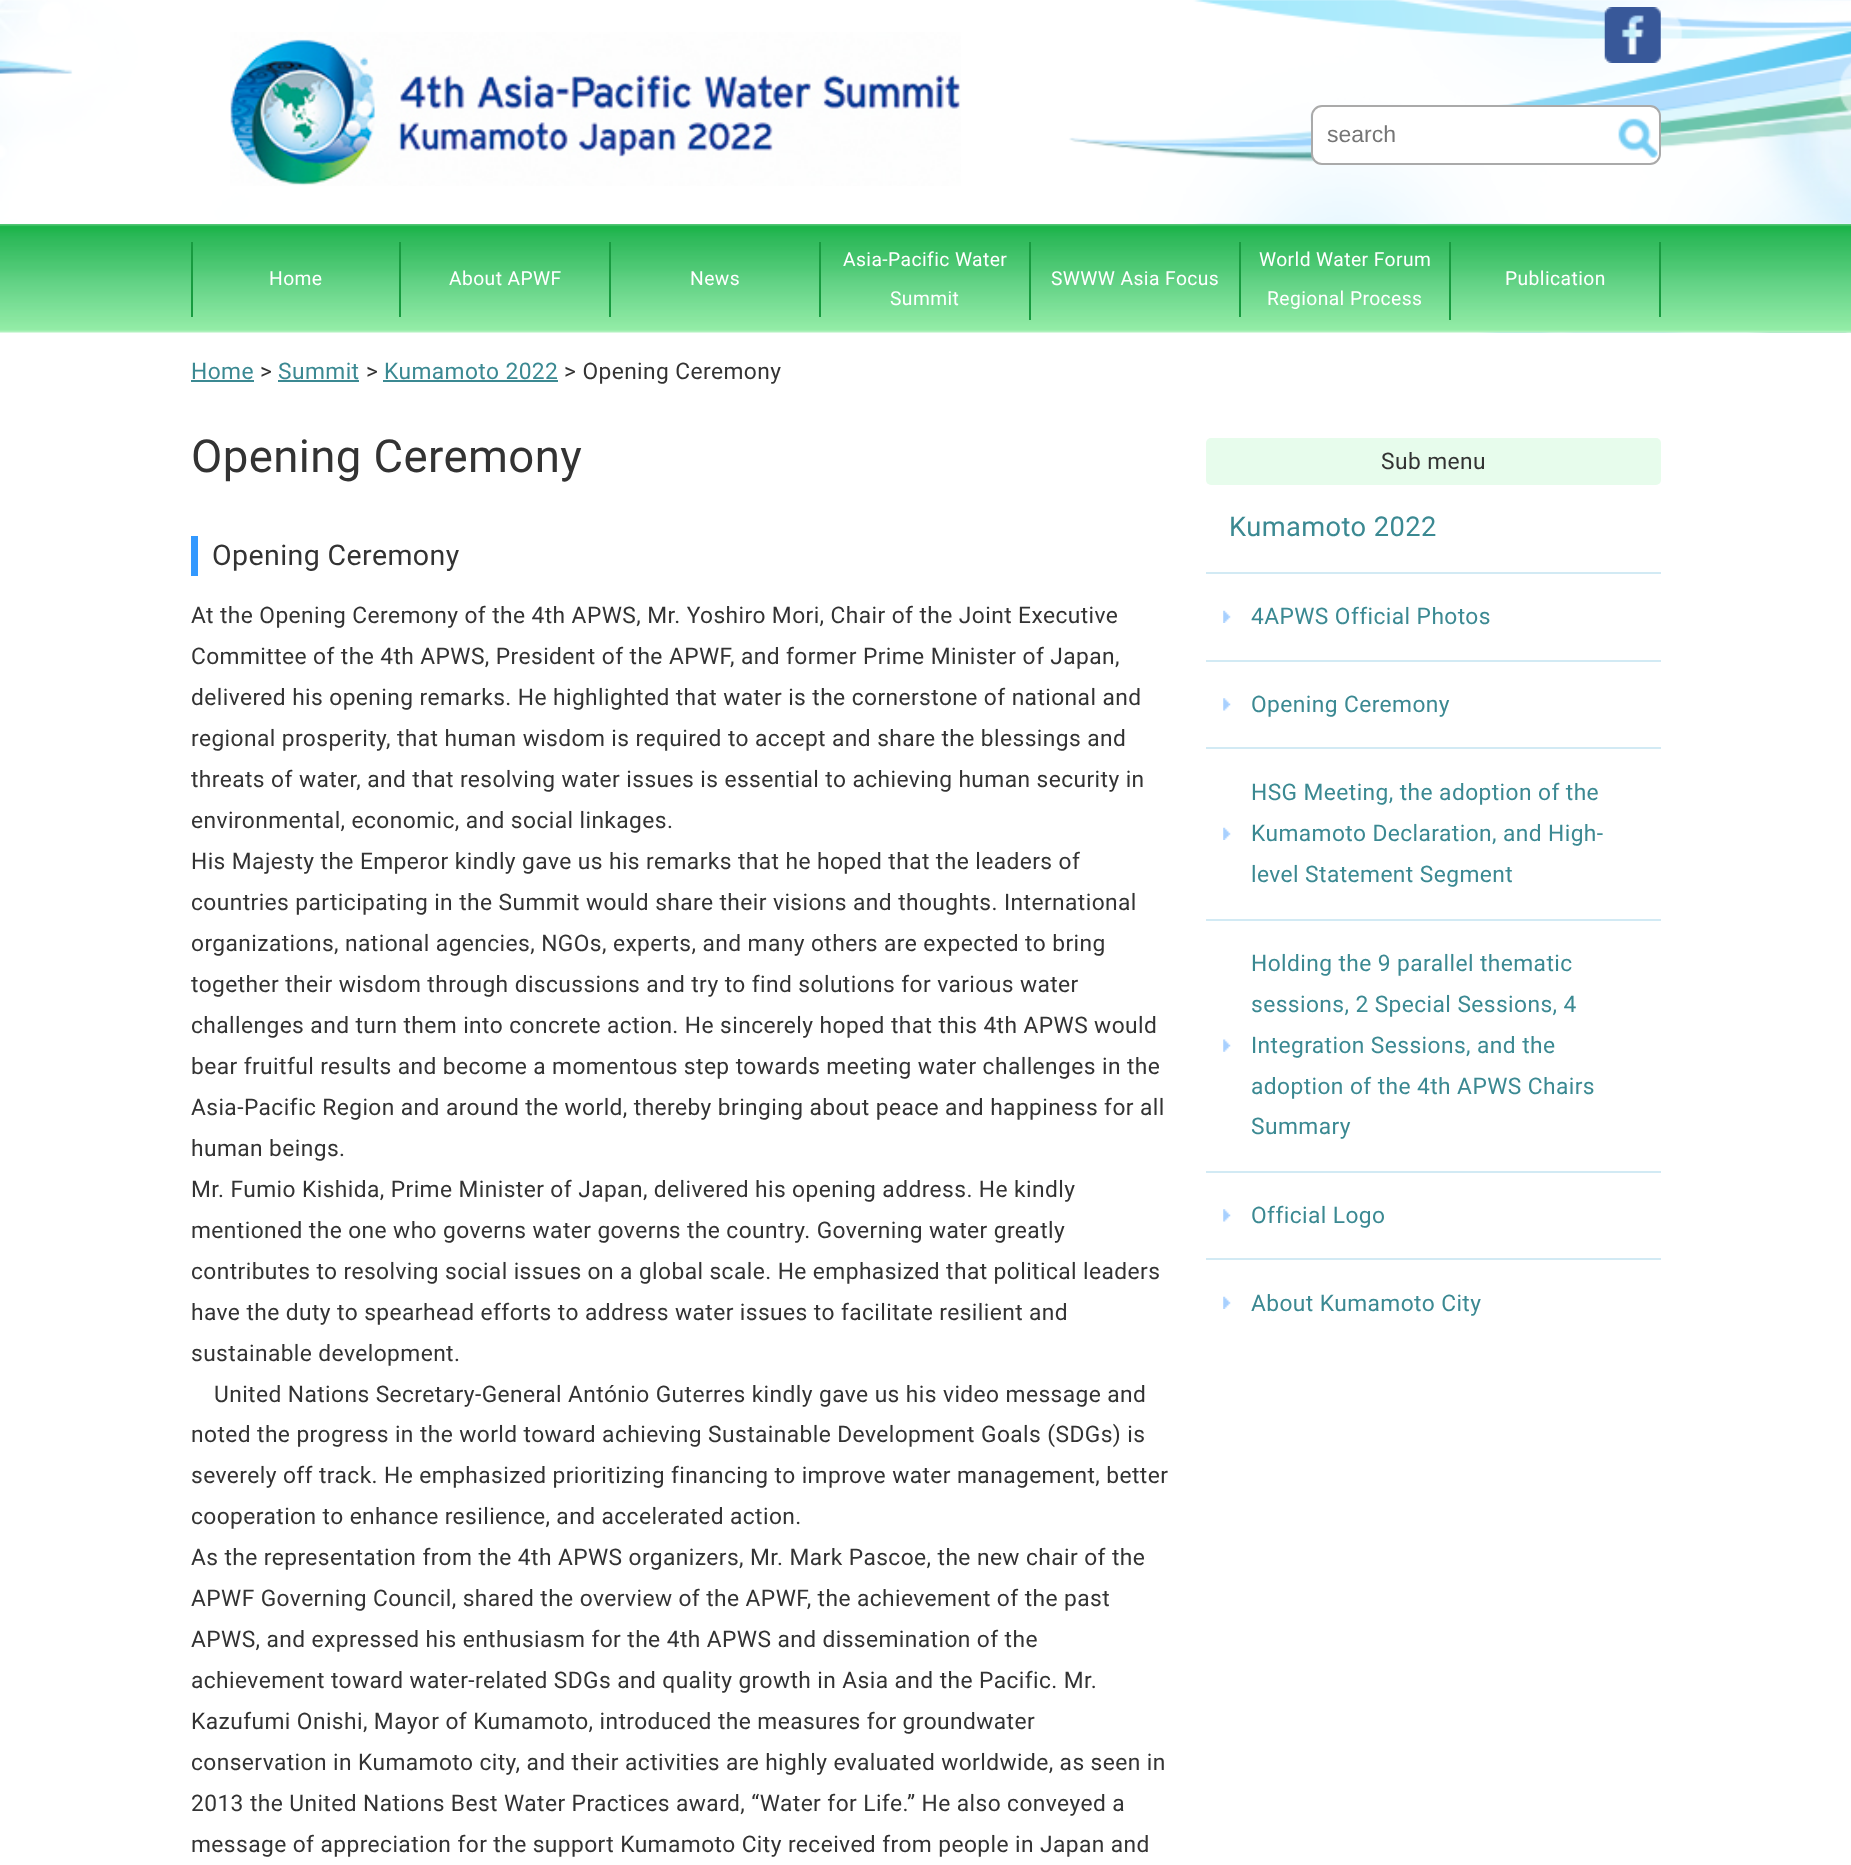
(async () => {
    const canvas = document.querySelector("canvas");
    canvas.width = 1851;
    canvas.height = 1865;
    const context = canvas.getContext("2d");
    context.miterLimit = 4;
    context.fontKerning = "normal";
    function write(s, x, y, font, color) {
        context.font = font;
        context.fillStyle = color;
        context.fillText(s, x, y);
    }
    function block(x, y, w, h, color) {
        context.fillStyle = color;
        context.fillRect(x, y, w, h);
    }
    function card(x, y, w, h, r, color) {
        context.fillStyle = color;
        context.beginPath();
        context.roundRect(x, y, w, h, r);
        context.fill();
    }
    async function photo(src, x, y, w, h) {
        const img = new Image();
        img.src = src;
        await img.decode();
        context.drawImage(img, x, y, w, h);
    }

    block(0, 0, 1851, 1865, "rgb(255, 255, 255)");
    await photo("media/1.png", 0, 0, 1851, 333);
    await photo("media/2.png", 230, 32, 731, 154);
    await photo("media/3.png", 1604, 7, 57, 56);
    context.beginPath();
    context.roundRect(1312, 106, 348, 58, 10);
    context.fill();
    context.strokeStyle = "rgb(170, 170, 170)";
    context.lineWidth = 2;
    context.stroke();
    write("search", 1327, 142, "23px Liberation Sans", "rgb(117, 117, 117)");
    await photo("media/4.png", 1618, 118, 40, 40);
    await photo("media/5.png", 0, 224, 1851, 109);
    block(399, 242, 2, 75, "rgb(24, 155, 64)");
    block(191, 242, 2, 75, "rgb(24, 155, 64)");
    context.letterSpacing = "0.42px";
    write("Home", 269, 285, "19.25px Roboto", "rgb(255, 255, 255)");
    block(609, 242, 2, 75, "rgb(24, 155, 64)");
    write("About APWF", 449, 285, "19.25px Roboto", "rgb(255, 255, 255)");
    block(819, 242, 2, 75, "rgb(24, 155, 64)");
    write("News", 690, 285, "19.25px Roboto", "rgb(255, 255, 255)");
    block(1029, 242, 2, 78, "rgb(24, 155, 64)");
    write("Asia-Pacific Water", 843, 266, "19.25px Roboto", "rgb(255, 255, 255)");
    write("Summit", 890, 305, "19.25px Roboto", "rgb(255, 255, 255)");
    block(1239, 242, 2, 75, "rgb(24, 155, 64)");
    write("SWWW Asia Focus", 1051, 285, "19.25px Roboto", "rgb(255, 255, 255)");
    block(1449, 242, 2, 78, "rgb(24, 155, 64)");
    write("World Water Forum", 1259, 266, "19.25px Roboto", "rgb(255, 255, 255)");
    write("Regional Process", 1267, 305, "19.25px Roboto", "rgb(255, 255, 255)");
    block(1659, 242, 2, 75, "rgb(24, 155, 64)");
    write("Publication", 1505, 285, "19.25px Roboto", "rgb(255, 255, 255)");
    write("Home", 191, 379, "22.75px Roboto", "rgb(59, 137, 146)");
    block(191, 380, 63, 2, "rgb(59, 137, 146)");
    write(">", 260, 379, "22.75px Roboto", "rgb(51, 51, 51)");
    write("Summit", 278, 379, "22.75px Roboto", "rgb(59, 137, 146)");
    block(278, 380, 81, 2, "rgb(59, 137, 146)");
    write(">", 366, 379, "22.75px Roboto", "rgb(51, 51, 51)");
    write("Kumamoto 2022", 384, 379, "22.75px Roboto", "rgb(59, 137, 146)");
    block(383, 380, 175, 2, "rgb(59, 137, 146)");
    write("> Opening Ceremony", 564, 379, "22.75px Roboto", "rgb(51, 51, 51)");
    write("Opening Ceremony", 191, 472, "45.5px Roboto", "rgb(51, 51, 51)");
    block(191, 536, 7, 40, "rgb(51, 153, 255)");
    write("Opening Ceremony", 212, 565, "28.5px Roboto", "rgb(51, 51, 51)");
    write("At the Opening Ceremony of the 4th APWS, Mr. Yoshiro Mori, Chair of the Joint Executive", 191, 623, "22.75px Roboto", "rgb(51, 51, 51)");
    write("Committee of the 4th APWS, President of the APWF, and former Prime Minister of Japan,", 191, 664, "22.75px Roboto", "rgb(51, 51, 51)");
    write("delivered his opening remarks. He highlighted that water is the cornerstone of national and", 191, 705, "22.75px Roboto", "rgb(51, 51, 51)");
    write("regional prosperity, that human wisdom is required to accept and share the blessings and", 191, 746, "22.75px Roboto", "rgb(51, 51, 51)");
    write("threats of water, and that resolving water issues is essential to achieving human security in", 191, 787, "22.75px Roboto", "rgb(51, 51, 51)");
    write("environmental, economic, and social linkages.", 191, 828, "22.75px Roboto", "rgb(51, 51, 51)");
    write("His Majesty the Emperor kindly gave us his remarks that he hoped that the leaders of", 191, 869, "22.75px Roboto", "rgb(51, 51, 51)");
    write("countries participating in the Summit would share their visions and thoughts. International", 191, 910, "22.75px Roboto", "rgb(51, 51, 51)");
    write("organizations, national agencies, NGOs, experts, and many others are expected to bring", 191, 951, "22.75px Roboto", "rgb(51, 51, 51)");
    write("together their wisdom through discussions and try to find solutions for various water", 191, 992, "22.75px Roboto", "rgb(51, 51, 51)");
    write("challenges and turn them into concrete action. He sincerely hoped that this 4th APWS would", 191, 1033, "22.75px Roboto", "rgb(51, 51, 51)");
    write("bear fruitful results and become a momentous step towards meeting water challenges in the", 191, 1074, "22.75px Roboto", "rgb(51, 51, 51)");
    write("Asia-Pacific Region and around the world, thereby bringing about peace and happiness for all", 191, 1115, "22.75px Roboto", "rgb(51, 51, 51)");
    write("human beings.", 191, 1156, "22.75px Roboto", "rgb(51, 51, 51)");
    write("Mr. Fumio Kishida, Prime Minister of Japan, delivered his opening address. He kindly", 191, 1197, "22.75px Roboto", "rgb(51, 51, 51)");
    write("mentioned the one who governs water governs the country. Governing water greatly", 191, 1238, "22.75px Roboto", "rgb(51, 51, 51)");
    write("contributes to resolving social issues on a global scale. He emphasized that political leaders", 191, 1279, "22.75px Roboto", "rgb(51, 51, 51)");
    write("have the duty to spearhead efforts to address water issues to facilitate resilient and", 191, 1320, "22.75px Roboto", "rgb(51, 51, 51)");
    write("sustainable development.", 191, 1361, "22.75px Roboto", "rgb(51, 51, 51)");
    write("United Nations Secretary-General António Guterres kindly gave us his video message and", 214, 1402, "22.75px Roboto", "rgb(51, 51, 51)");
    write("noted the progress in the world toward achieving Sustainable Development Goals (SDGs) is", 191, 1442, "22.75px Roboto", "rgb(51, 51, 51)");
    write("severely off track. He emphasized prioritizing financing to improve water management, better", 191, 1483, "22.75px Roboto", "rgb(51, 51, 51)");
    write("cooperation to enhance resilience, and accelerated action.", 191, 1524, "22.75px Roboto", "rgb(51, 51, 51)");
    write("As the representation from the 4th APWS organizers, Mr. Mark Pascoe, the new chair of the", 191, 1565, "22.75px Roboto", "rgb(51, 51, 51)");
    write("APWF Governing Council, shared the overview of the APWF, the achievement of the past", 191, 1606, "22.75px Roboto", "rgb(51, 51, 51)");
    write("APWS, and expressed his enthusiasm for the 4th APWS and dissemination of the", 191, 1647, "22.75px Roboto", "rgb(51, 51, 51)");
    write("achievement toward water-related SDGs and quality growth in Asia and the Pacific. Mr.", 191, 1688, "22.75px Roboto", "rgb(51, 51, 51)");
    write("Kazufumi Onishi, Mayor of Kumamoto, introduced the measures for groundwater", 191, 1729, "22.75px Roboto", "rgb(51, 51, 51)");
    write("conservation in Kumamoto city, and their activities are highly evaluated worldwide, as seen in", 191, 1770, "22.75px Roboto", "rgb(51, 51, 51)");
    write("2013 the United Nations Best Water Practices award, “Water for Life.” He also conveyed a", 191, 1811, "22.75px Roboto", "rgb(51, 51, 51)");
    write("message of appreciation for the support Kumamoto City received from people in Japan and", 191, 1852, "22.75px Roboto", "rgb(51, 51, 51)");
    card(1206, 438, 455, 47, 5, "rgb(231, 252, 236)");
    write("Sub menu", 1381, 469, "22.75px Roboto", "rgb(51, 51, 51)");
    block(1206, 572, 455, 2, "rgb(210, 234, 244)");
    write("Kumamoto 2022", 1229, 536, "27.25px Roboto", "rgb(59, 137, 146)");
    block(1206, 660, 455, 2, "rgb(210, 234, 244)");
    await photo("media/6.png", 1223, 610, 8, 13);
    write("4APWS Official Photos", 1251, 624, "22.75px Roboto", "rgb(59, 137, 146)");
    block(1206, 747, 455, 2, "rgb(210, 234, 244)");
    await photo("media/7.png", 1223, 698, 8, 13);
    write("Opening Ceremony", 1251, 712, "22.75px Roboto", "rgb(59, 137, 146)");
    block(1206, 919, 455, 2, "rgb(210, 234, 244)");
    await photo("media/6.png", 1223, 827, 8, 13);
    write("HSG Meeting, the adoption of the", 1251, 800, "22.75px Roboto", "rgb(59, 137, 146)");
    write("Kumamoto Declaration, and High-", 1251, 841, "22.75px Roboto", "rgb(59, 137, 146)");
    write("level Statement Segment", 1251, 882, "22.75px Roboto", "rgb(59, 137, 146)");
    block(1206, 1171, 455, 2, "rgb(210, 234, 244)");
    await photo("media/8.png", 1223, 1039, 8, 13);
    write("Holding the 9 parallel thematic", 1251, 971, "22.75px Roboto", "rgb(59, 137, 146)");
    write("sessions, 2 Special Sessions, 4", 1251, 1012, "22.75px Roboto", "rgb(59, 137, 146)");
    write("Integration Sessions, and the", 1251, 1053, "22.75px Roboto", "rgb(59, 137, 146)");
    write("adoption of the 4th APWS Chairs", 1251, 1094, "22.75px Roboto", "rgb(59, 137, 146)");
    write("Summary", 1251, 1134, "22.75px Roboto", "rgb(59, 137, 146)");
    block(1206, 1258, 455, 2, "rgb(210, 234, 244)");
    await photo("media/7.png", 1223, 1209, 8, 13);
    write("Official Logo", 1251, 1223, "22.75px Roboto", "rgb(59, 137, 146)");
    await photo("media/6.png", 1223, 1296, 8, 13);
    write("About Kumamoto City", 1251, 1311, "22.75px Roboto", "rgb(59, 137, 146)");
})();
